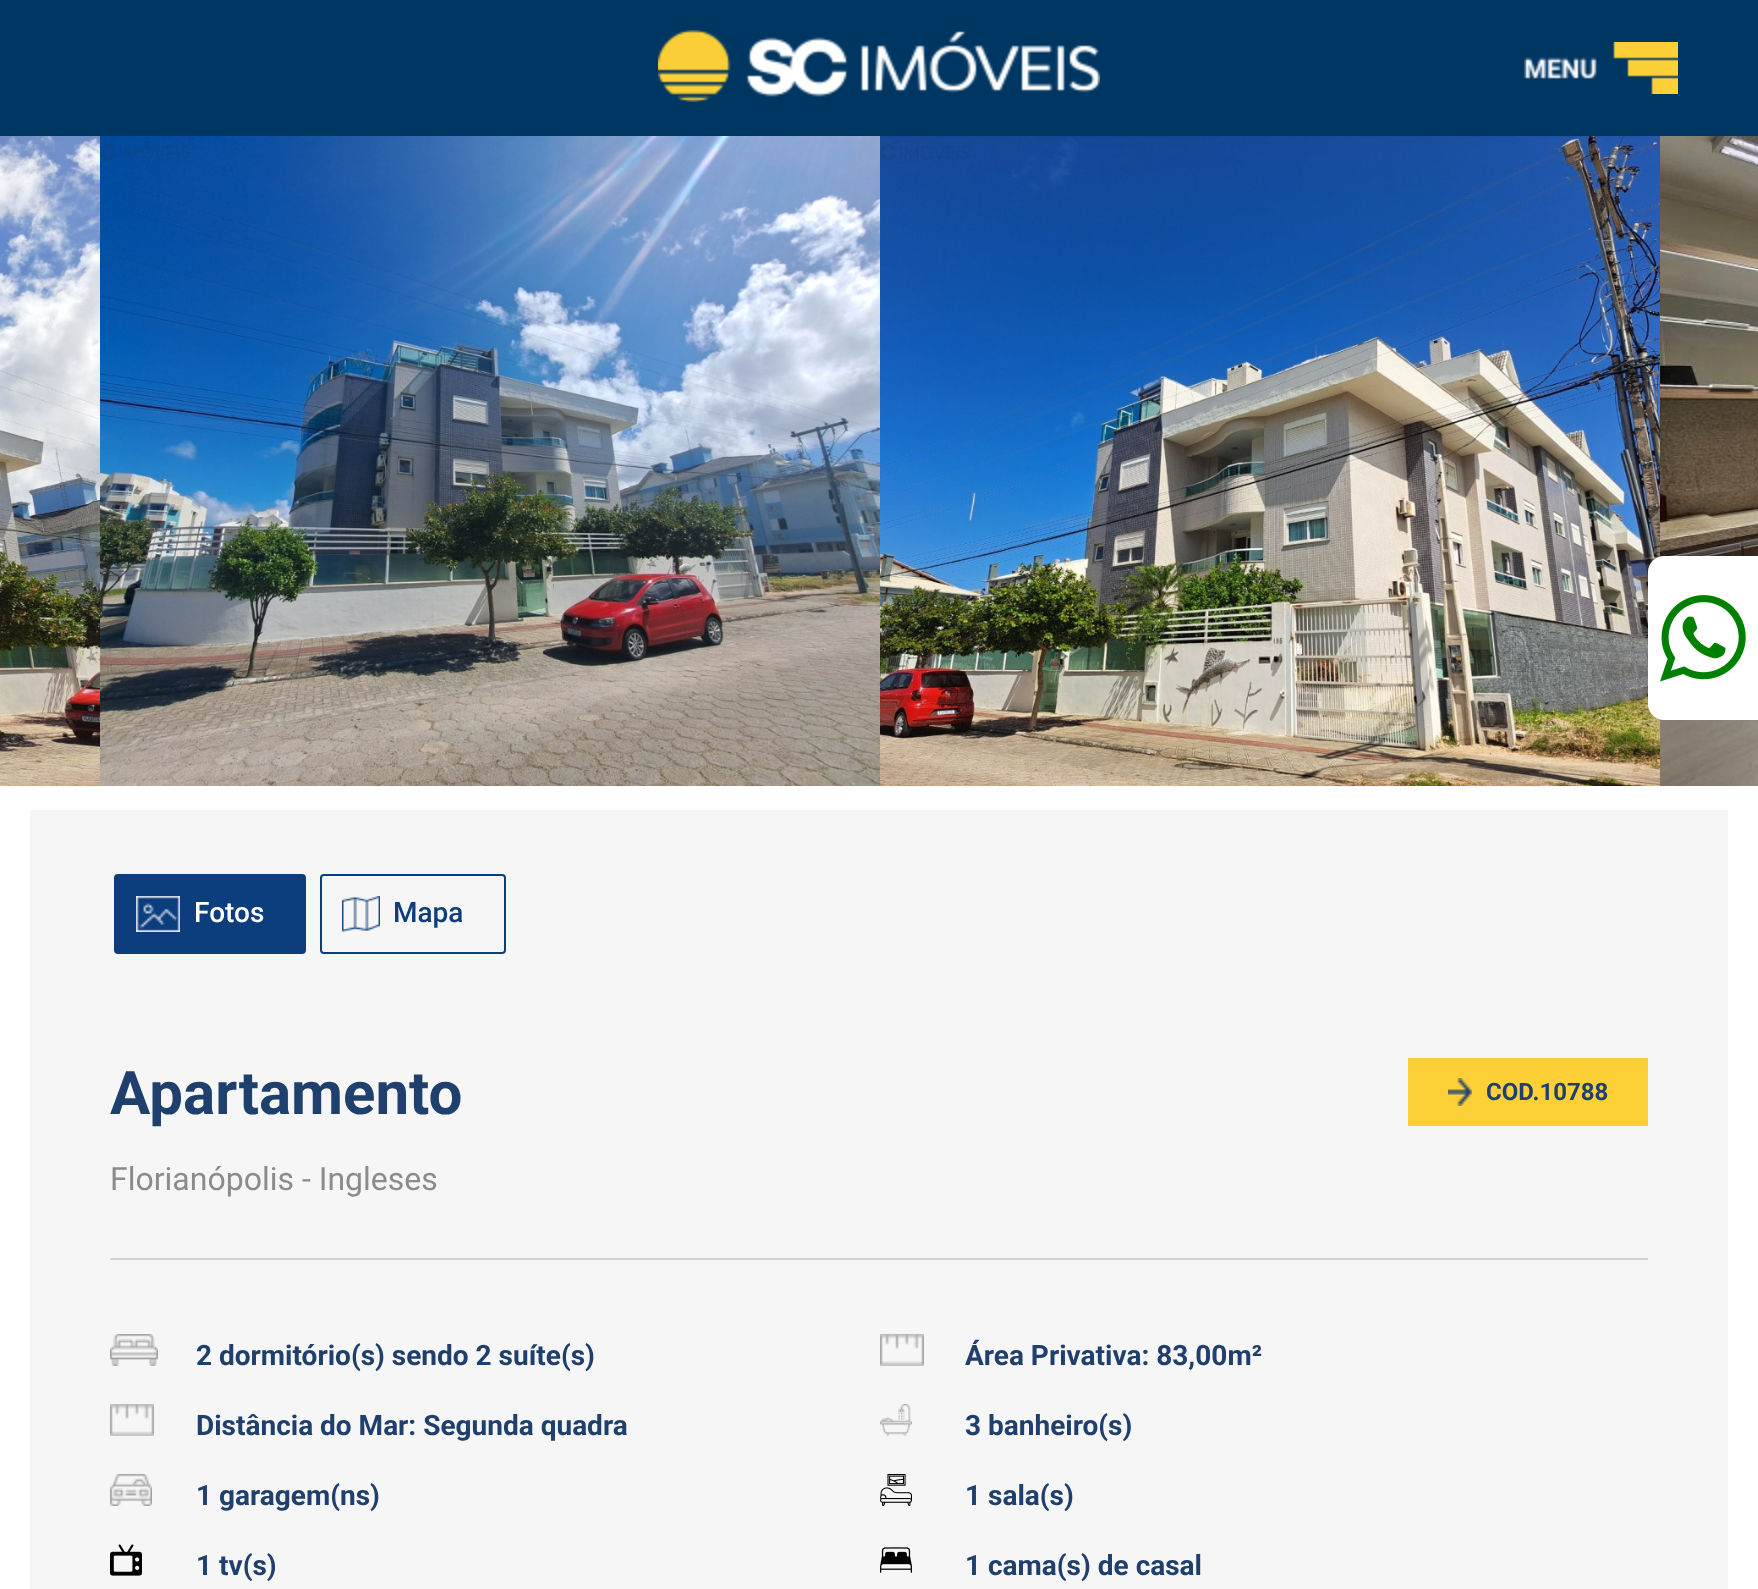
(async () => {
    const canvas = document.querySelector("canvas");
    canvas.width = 1758;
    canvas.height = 1589;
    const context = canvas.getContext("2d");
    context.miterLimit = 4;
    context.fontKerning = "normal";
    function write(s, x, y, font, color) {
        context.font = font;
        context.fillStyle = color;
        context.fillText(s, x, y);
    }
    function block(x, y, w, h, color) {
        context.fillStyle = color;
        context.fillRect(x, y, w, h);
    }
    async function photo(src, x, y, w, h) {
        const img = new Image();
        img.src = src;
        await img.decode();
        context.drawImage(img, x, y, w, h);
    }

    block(0, 0, 1758, 1589, "rgb(255, 255, 255)");
    await photo("media/6.png", 880, 136, 780, 650);
    await photo("media/7.png", 1660, 136, 98, 650);
    context.fillStyle = "rgba(69, 65, 78, 0.2)";
    context.filter = "blur(15px)";
    context.beginPath();
    context.roundRect(1646, 554, 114, 168, 18);
    context.fill();
    context.filter = "none";
    context.fillStyle = "rgb(255, 255, 255)";
    context.beginPath();
    context.roundRect(1648, 556, 110, 164, [16, 0, 0, 16]);
    context.fill();
    await photo("media/1.png", 1660, 595, 86, 87);
    block(0, 0, 1758, 136, "rgb(0, 55, 98)");
    await photo("media/2.png", 658, 30, 442, 72);
    await photo("media/3.png", 1524, 42, 154, 52);
    await photo("media/4.png", 0, 136, 100, 650);
    await photo("media/5.png", 100, 136, 780, 650);
    block(30, 810, 1698, 779, "rgb(246, 246, 246)");
    context.fillStyle = "rgb(12, 61, 124)";
    context.beginPath();
    context.roundRect(115, 875, 190, 78, 3);
    context.fill();
    context.strokeStyle = "rgb(12, 61, 124)";
    context.lineWidth = 2;
    context.stroke();
    await photo("media/8.png", 136, 896, 44, 36);
    write("Fotos", 194, 922, "500 28px Roboto", "rgb(255, 255, 255)");
    context.beginPath();
    context.roundRect(321, 875, 184, 78, 3);
    context.stroke();
    await photo("media/9.png", 342, 896, 38, 36);
    write("Mapa", 393, 922, "500 28px Roboto", "rgb(12, 61, 124)");
    write("Apartamento", 110, 1114, "bold 60px Roboto", "rgb(31, 63, 109)");
    write("Florianópolis - Ingleses", 110, 1190, "32px Roboto", "rgb(139, 139, 139)");
    block(1408, 1058, 240, 68, "rgb(253, 208, 55)");
    await photo("media/10.png", 1448, 1078, 24, 28);
    write("COD.10788", 1486, 1100, "bold 24px Roboto", "rgb(31, 63, 109)");
    block(110, 1258, 1538, 2, "rgb(211, 211, 211)");
    await photo("media/11.png", 110, 1334, 48, 32);
    write("2 dormitório(s) sendo 2 suíte(s)", 196, 1365, "bold 28px Roboto", "rgb(31, 63, 109)");
    await photo("media/12.png", 880, 1334, 44, 32);
    write("Área Privativa: 83,00m²", 965, 1365, "bold 28px Roboto", "rgb(31, 63, 109)");
    await photo("media/12.png", 110, 1404, 44, 32);
    write("Distância do Mar: Segunda quadra", 196, 1435, "bold 28px Roboto", "rgb(31, 63, 109)");
    await photo("media/13.png", 880, 1404, 32, 32);
    write("3 banheiro(s)", 965, 1435, "bold 28px Roboto", "rgb(31, 63, 109)");
    await photo("media/14.png", 110, 1474, 42, 32);
    write("1 garagem(ns)", 196, 1505, "bold 28px Roboto", "rgb(31, 63, 109)");
    await photo("media/15.png", 880, 1474, 32, 32);
    write("1 sala(s)", 965, 1505, "bold 28px Roboto", "rgb(31, 63, 109)");
    await photo("media/16.png", 110, 1544, 32, 32);
    write("1 tv(s)", 196, 1575, "bold 28px Roboto", "rgb(31, 63, 109)");
    await photo("media/17.png", 880, 1547, 32, 26);
    write("1 cama(s) de casal", 965, 1575, "bold 28px Roboto", "rgb(31, 63, 109)");
})();
